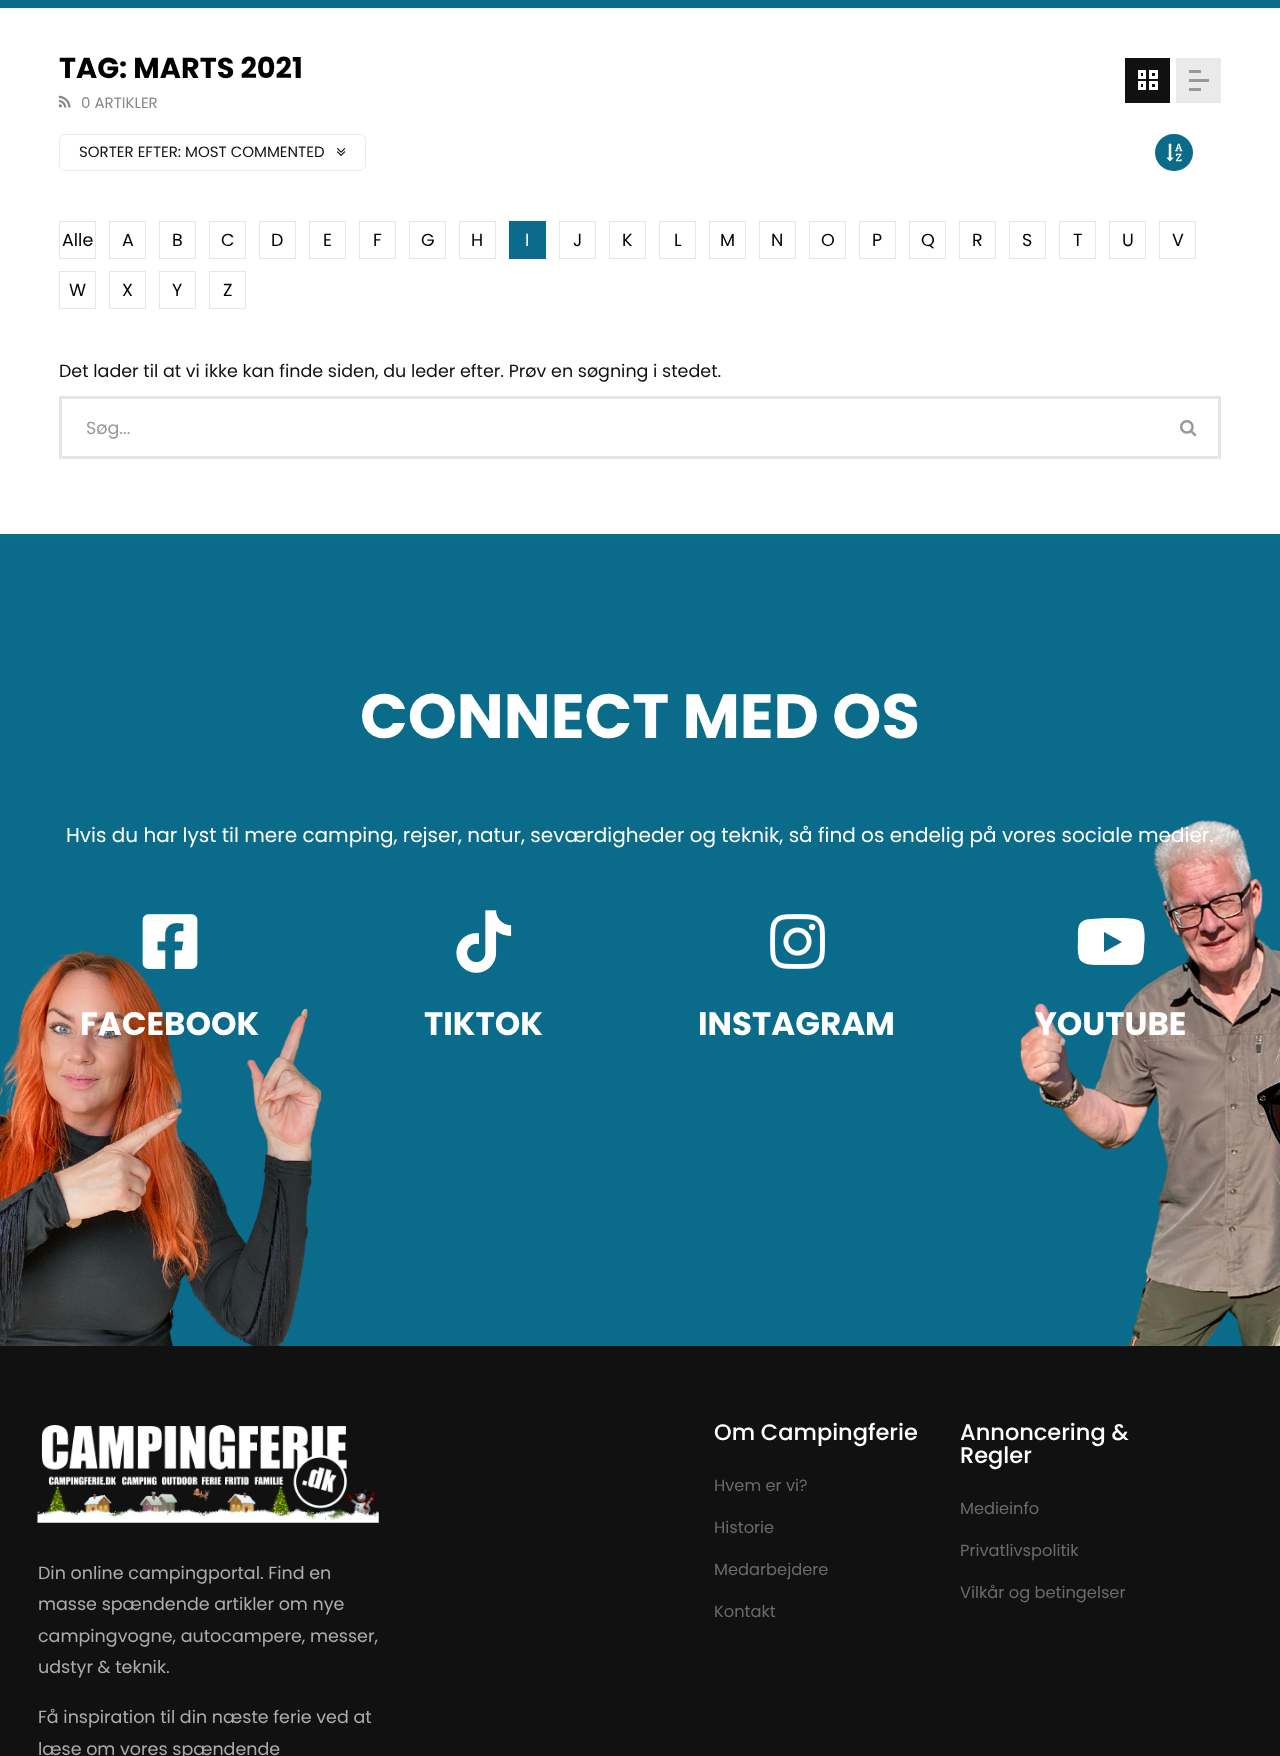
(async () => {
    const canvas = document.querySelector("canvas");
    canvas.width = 1280;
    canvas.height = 1756;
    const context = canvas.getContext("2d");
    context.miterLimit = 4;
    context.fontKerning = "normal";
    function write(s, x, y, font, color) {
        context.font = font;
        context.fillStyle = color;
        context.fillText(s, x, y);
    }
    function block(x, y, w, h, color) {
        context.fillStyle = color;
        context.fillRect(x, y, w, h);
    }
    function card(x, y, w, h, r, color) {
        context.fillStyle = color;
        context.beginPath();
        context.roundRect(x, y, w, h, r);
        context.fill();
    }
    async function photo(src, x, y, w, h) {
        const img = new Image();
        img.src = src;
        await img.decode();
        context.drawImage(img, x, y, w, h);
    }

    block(0, 0, 1280, 1756, "rgb(255, 255, 255)");
    block(0, 0, 1280, 8, "rgb(10, 107, 138)");
    write("TAG: MARTS 2021", 59, 78, "bold 28.75px Poppins", "rgb(0, 0, 0)");
    await photo("media/1.png", 58, 95, 13, 13);
    write("0 ARTIKLER", 81, 108, "15px Poppins", "rgb(136, 136, 136)");
    context.beginPath();
    context.roundRect(59.5, 134.5, 306, 36, 5.5);
    context.strokeStyle = "rgb(234, 234, 234)";
    context.stroke();
    write("SORTER EFTER: MOST COMMENTED", 79, 157, "15px Poppins", "rgb(17, 17, 17)");
    await photo("media/2.png", 336, 148, 10, 8);
    block(1125, 58, 45, 45, "rgb(17, 17, 17)");
    context.strokeStyle = "rgb(255, 255, 255)";
    context.lineWidth = 3;
    context.strokeRect(1139.5, 71.5, 5, 6);
    context.strokeRect(1150.5, 71.5, 6, 6);
    context.strokeRect(1139.5, 82.5, 5, 6);
    context.strokeRect(1150.5, 82.5, 6, 6);
    block(1176, 58, 45, 45, "rgb(234, 234, 234)");
    block(1189, 70, 12, 3, "rgb(153, 153, 153)");
    block(1189, 79, 20, 3, "rgb(153, 153, 153)");
    block(1189, 88, 12, 3, "rgb(153, 153, 153)");
    card(1155, 134, 38, 37, 18.5, "rgb(10, 107, 138)");
    await photo("media/3.png", 1166, 143, 17, 19);
    context.strokeStyle = "rgb(230, 230, 230)";
    context.lineWidth = 1;
    context.strokeRect(59.5, 221.5, 36, 37);
    write("Alle", 62, 246, "17.5px Poppins", "rgb(0, 0, 0)");
    context.strokeRect(109.5, 221.5, 36, 37);
    write("A", 122, 246, "17.5px Poppins", "rgb(0, 0, 0)");
    context.strokeRect(159.5, 221.5, 36, 37);
    write("B", 172, 246, "17.5px Poppins", "rgb(0, 0, 0)");
    context.strokeRect(209.5, 221.5, 36, 37);
    write("C", 221, 246, "17.5px Poppins", "rgb(0, 0, 0)");
    context.strokeRect(259.5, 221.5, 36, 37);
    write("D", 271, 246, "17.5px Poppins", "rgb(0, 0, 0)");
    context.strokeRect(309.5, 221.5, 36, 37);
    write("E", 323, 246, "17.5px Poppins", "rgb(0, 0, 0)");
    context.strokeRect(359.5, 221.5, 36, 37);
    write("F", 373, 246, "17.5px Poppins", "rgb(0, 0, 0)");
    context.strokeRect(409.5, 221.5, 36, 37);
    write("G", 421, 246, "17.5px Poppins", "rgb(0, 0, 0)");
    context.strokeRect(459.5, 221.5, 36, 37);
    write("H", 471, 246, "17.5px Poppins", "rgb(0, 0, 0)");
    block(509, 221, 37, 38, "rgb(10, 107, 138)");
    write("I", 525, 246, "17.5px Poppins", "rgb(255, 255, 255)");
    context.strokeRect(559.5, 221.5, 36, 37);
    write("J", 573, 246, "17.5px Poppins", "rgb(0, 0, 0)");
    context.strokeRect(609.5, 221.5, 36, 37);
    write("K", 622, 246, "17.5px Poppins", "rgb(0, 0, 0)");
    context.strokeRect(659.5, 221.5, 36, 37);
    write("L", 674, 246, "17.5px Poppins", "rgb(0, 0, 0)");
    context.strokeRect(709.5, 221.5, 36, 37);
    write("M", 720, 246, "17.5px Poppins", "rgb(0, 0, 0)");
    context.strokeRect(759.5, 221.5, 36, 37);
    write("N", 771, 246, "17.5px Poppins", "rgb(0, 0, 0)");
    context.strokeRect(809.5, 221.5, 36, 37);
    write("O", 821, 246, "17.5px Poppins", "rgb(0, 0, 0)");
    context.strokeRect(859.5, 221.5, 36, 37);
    write("P", 872, 246, "17.5px Poppins", "rgb(0, 0, 0)");
    context.strokeRect(909.5, 221.5, 36, 37);
    write("Q", 921, 246, "17.5px Poppins", "rgb(0, 0, 0)");
    context.strokeRect(959.5, 221.5, 36, 37);
    write("R", 972, 246, "17.5px Poppins", "rgb(0, 0, 0)");
    context.strokeRect(1009.5, 221.5, 36, 37);
    write("S", 1022, 246, "17.5px Poppins", "rgb(0, 0, 0)");
    context.strokeRect(1059.5, 221.5, 36, 37);
    write("T", 1073, 246, "17.5px Poppins", "rgb(0, 0, 0)");
    context.strokeRect(1109.5, 221.5, 36, 37);
    write("U", 1122, 246, "17.5px Poppins", "rgb(0, 0, 0)");
    context.strokeRect(1159.5, 221.5, 36, 37);
    write("V", 1172, 246, "17.5px Poppins", "rgb(0, 0, 0)");
    context.strokeRect(59.5, 271.5, 36, 37);
    write("W", 69, 296, "17.5px Poppins", "rgb(0, 0, 0)");
    context.strokeRect(109.5, 271.5, 36, 37);
    write("X", 122, 296, "17.5px Poppins", "rgb(0, 0, 0)");
    context.strokeRect(159.5, 271.5, 36, 37);
    write("Y", 172, 296, "17.5px Poppins", "rgb(0, 0, 0)");
    context.strokeRect(209.5, 271.5, 36, 37);
    write("Z", 223, 296, "17.5px Poppins", "rgb(0, 0, 0)");
    write("Det lader til at vi ikke kan finde siden, du leder efter. Prøv en søgning i stedet.", 59, 377, "17.5px Poppins", "rgb(17, 17, 17)");
    context.strokeStyle = "rgb(229, 229, 229)";
    context.lineWidth = 3;
    context.strokeRect(60.5, 397.5, 1159, 60);
    write("Søg...", 86, 434, "17.5px Poppins", "rgb(153, 153, 153)");
    await photo("media/4.png", 1180, 420, 17, 17);
    block(0, 534, 1280, 286, "rgb(10, 107, 138)");
    await photo("media/5.png", 0, 820, 1280, 526);
    write("CONNECT MED OS", 360, 738, "bold 62.5px Poppins", "rgb(255, 255, 255)");
    write("Hvis du har lyst til mere camping, rejser, natur, seværdigheder og teknik, så find os endelig på vores sociale medier.", 66, 842, "20px Poppins", "rgb(255, 255, 255)");
    await photo("media/6.png", 142, 914, 56, 55);
    write("FACEBOOK", 80, 1035, "bold 32.5px Poppins", "rgb(255, 255, 255)");
    await photo("media/7.png", 456, 910, 56, 63);
    write("TIKTOK", 424, 1035, "bold 32.5px Poppins", "rgb(255, 255, 255)");
    await photo("media/8.png", 770, 914, 55, 55);
    write("INSTAGRAM", 698, 1035, "bold 32.5px Poppins", "rgb(255, 255, 255)");
    context.beginPath();
    context.moveTo(1143, 925);
    context.bezierCurveTo(1145, 932, 1145, 939, 1144, 946);
    context.bezierCurveTo(1144, 967, 1138, 965, 1119, 965);
    context.lineTo(1102, 965);
    context.bezierCurveTo(1096, 965, 1082, 966, 1079, 958);
    context.bezierCurveTo(1077, 951, 1078, 944, 1078, 937);
    context.bezierCurveTo(1078, 926, 1078, 920, 1091, 919);
    context.lineTo(1106, 918);
    context.lineTo(1125, 918);
    context.bezierCurveTo(1131, 919, 1141, 918, 1143, 925);
    context.closePath();
    context.moveTo(1104, 952);
    context.lineTo(1122, 942);
    context.lineTo(1104, 932);
    context.closePath();
    context.fill();
    write("YOUTUBE", 1035, 1035, "bold 32.5px Poppins", "rgb(255, 255, 255)");
    block(0, 1346, 1280, 410, "rgb(17, 17, 17)");
    write("Om Campingferie", 714, 1440, "500 22.5px Poppins", "rgb(255, 255, 255)");
    write("Hvem er vi?", 714, 1491, "16.25px Poppins", "rgb(107, 107, 107)");
    write("Historie", 714, 1533, "16.25px Poppins", "rgb(107, 107, 107)");
    write("Medarbejdere", 714, 1575, "16.25px Poppins", "rgb(107, 107, 107)");
    write("Kontakt", 714, 1617, "16.25px Poppins", "rgb(107, 107, 107)");
    write("Annoncering &", 960, 1440, "500 22.5px Poppins", "rgb(255, 255, 255)");
    write("Regler", 960, 1463, "500 22.5px Poppins", "rgb(255, 255, 255)");
    write("Medieinfo", 960, 1514, "16.25px Poppins", "rgb(107, 107, 107)");
    write("Privatlivspolitik", 960, 1556, "16.25px Poppins", "rgb(107, 107, 107)");
    write("Vilkår og betingelser", 960, 1598, "16.25px Poppins", "rgb(107, 107, 107)");
    await photo("media/9.png", 37, 1425, 342, 98);
    write("Din online campingportal. Find en", 38, 1579, "17.5px Poppins", "rgb(172, 172, 172)");
    write("masse spændende artikler om nye", 38, 1610, "17.5px Poppins", "rgb(172, 172, 172)");
    write("campingvogne, autocampere, messer,", 38, 1642, "17.5px Poppins", "rgb(172, 172, 172)");
    write("udstyr & teknik.", 38, 1673, "17.5px Poppins", "rgb(172, 172, 172)");
    write("Få inspiration til din næste ferie ved at", 38, 1723, "17.5px Poppins", "rgb(172, 172, 172)");
    write("læse om vores spændende", 38, 1755, "17.5px Poppins", "rgb(172, 172, 172)");
})();
